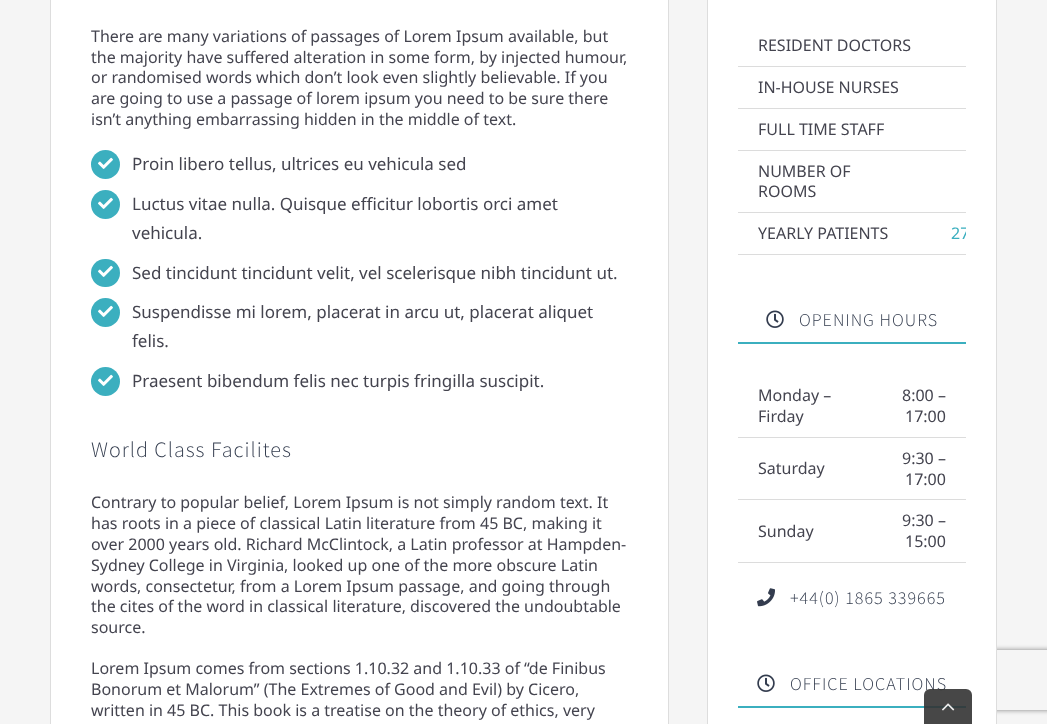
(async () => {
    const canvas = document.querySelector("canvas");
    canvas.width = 1047;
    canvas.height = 724;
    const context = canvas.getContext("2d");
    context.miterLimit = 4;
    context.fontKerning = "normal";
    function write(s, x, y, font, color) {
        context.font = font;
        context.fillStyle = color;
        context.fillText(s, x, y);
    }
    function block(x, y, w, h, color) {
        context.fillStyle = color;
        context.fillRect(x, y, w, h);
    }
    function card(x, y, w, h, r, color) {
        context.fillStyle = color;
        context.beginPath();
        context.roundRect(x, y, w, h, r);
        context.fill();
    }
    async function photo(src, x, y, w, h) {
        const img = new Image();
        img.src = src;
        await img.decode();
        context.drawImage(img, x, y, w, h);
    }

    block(0, 0, 1047, 724, "rgb(245, 245, 245)");
    context.fillStyle = "rgb(255, 255, 255)";
    context.beginPath();
    context.rect(50.5, -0.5, 618, 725);
    context.fill();
    context.strokeStyle = "rgb(221, 221, 221)";
    context.stroke();
    write("There are many variations of passages of Lorem Ipsum available, but", 91, 42, "16px Noto Sans", "rgb(68, 68, 79)");
    write("the majority have suffered alteration in some form, by injected humour,", 91, 63, "16px Noto Sans", "rgb(68, 68, 79)");
    write("or randomised words which don’t look even slightly believable. If you", 91, 83, "16px Noto Sans", "rgb(68, 68, 79)");
    write("are going to use a passage of lorem ipsum you need to be sure there", 91, 104, "16px Noto Sans", "rgb(68, 68, 79)");
    write("isn’t anything embarrassing hidden in the middle of text.", 91, 125, "16px Noto Sans", "rgb(68, 68, 79)");
    context.fillStyle = "rgb(59, 175, 191)";
    context.beginPath();
    context.arc(105.5, 164.5, 14.5, 0, Math.PI * 2);
    context.fill();
    await photo("media/1.png", 98, 157, 15, 12);
    write("Proin libero tellus, ultrices eu vehicula sed", 132, 170, "17px Noto Sans", "rgb(68, 68, 79)");
    context.fillStyle = "rgb(59, 175, 191)";
    context.beginPath();
    context.arc(105.5, 204.5, 14.5, 0, Math.PI * 2);
    context.fill();
    await photo("media/1.png", 98, 197, 15, 12);
    write("Luctus vitae nulla. Quisque efficitur lobortis orci amet", 132, 210, "17px Noto Sans", "rgb(68, 68, 79)");
    write("vehicula.", 132, 239, "17px Noto Sans", "rgb(68, 68, 79)");
    card(91, 259, 29, 28, 14, "rgb(59, 175, 191)");
    await photo("media/1.png", 98, 265, 15, 12);
    write("Sed tincidunt tincidunt velit, vel scelerisque nibh tincidunt ut.", 132, 279, "17px Noto Sans", "rgb(68, 68, 79)");
    context.fillStyle = "rgb(59, 175, 191)";
    context.beginPath();
    context.arc(105.5, 312.5, 14.5, 0, Math.PI * 2);
    context.fill();
    await photo("media/1.png", 98, 305, 15, 12);
    write("Suspendisse mi lorem, placerat in arcu ut, placerat aliquet", 132, 318, "17px Noto Sans", "rgb(68, 68, 79)");
    write("felis.", 132, 347, "17px Noto Sans", "rgb(68, 68, 79)");
    context.fillStyle = "rgb(59, 175, 191)";
    context.beginPath();
    context.arc(105.5, 381.5, 14.5, 0, Math.PI * 2);
    context.fill();
    await photo("media/1.png", 98, 374, 15, 12);
    write("Praesent bibendum felis nec turpis fringilla suscipit.", 132, 387, "17px Noto Sans", "rgb(68, 68, 79)");
    context.letterSpacing = "1px";
    write("World Class Facilites", 91, 457, "300 22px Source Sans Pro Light", "rgb(51, 60, 78)");
    context.letterSpacing = "0px";
    write("Contrary to popular belief, Lorem Ipsum is not simply random text. It", 91, 508, "16px Noto Sans", "rgb(68, 68, 79)");
    write("has roots in a piece of classical Latin literature from 45 BC, making it", 91, 529, "16px Noto Sans", "rgb(68, 68, 79)");
    write("over 2000 years old. Richard McClintock, a Latin professor at Hampden-", 91, 550, "16px Noto Sans", "rgb(68, 68, 79)");
    write("Sydney College in Virginia, looked up one of the more obscure Latin", 91, 571, "16px Noto Sans", "rgb(68, 68, 79)");
    write("words, consectetur, from a Lorem Ipsum passage, and going through", 91, 592, "16px Noto Sans", "rgb(68, 68, 79)");
    write("the cites of the word in classical literature, discovered the undoubtable", 91, 612, "16px Noto Sans", "rgb(68, 68, 79)");
    write("source.", 91, 633, "16px Noto Sans", "rgb(68, 68, 79)");
    write("Lorem Ipsum comes from sections 1.10.32 and 1.10.33 of “de Finibus", 91, 674, "16px Noto Sans", "rgb(68, 68, 79)");
    write("Bonorum et Malorum” (The Extremes of Good and Evil) by Cicero,", 91, 695, "16px Noto Sans", "rgb(68, 68, 79)");
    write("written in 45 BC. This book is a treatise on the theory of ethics, very", 91, 716, "16px Noto Sans", "rgb(68, 68, 79)");
    context.save();
    context.beginPath();
    context.moveTo(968, 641);
    context.lineTo(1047, 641);
    context.lineTo(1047, 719);
    context.lineTo(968, 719);
    context.closePath();
    context.moveTo(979, 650);
    context.lineTo(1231, 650);
    context.bezierCurveTo(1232, 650, 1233, 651, 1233, 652);
    context.lineTo(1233, 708);
    context.bezierCurveTo(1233, 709, 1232, 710, 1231, 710);
    context.lineTo(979, 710);
    context.bezierCurveTo(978, 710, 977, 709, 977, 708);
    context.lineTo(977, 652);
    context.bezierCurveTo(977, 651, 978, 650, 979, 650);
    context.closePath();
    context.clip("evenodd");
    context.fillStyle = "rgb(128, 128, 128)";
    context.filter = "blur(2.5px)";
    context.beginPath();
    context.roundRect(977, 650, 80, 60, 2);
    context.fill();
    context.filter = "none";
    context.restore();
    context.fillStyle = "rgb(255, 255, 255)";
    context.beginPath();
    context.rect(707.5, -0.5, 289, 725);
    context.fill();
    context.stroke();
    write("RESIDENT DOCTORS", 758, 51, "16px Noto Sans", "rgb(68, 68, 79)");
    block(738, 66, 228, 1, "rgb(220, 220, 220)");
    write("IN-HOUSE NURSES", 758, 93, "16px Noto Sans", "rgb(68, 68, 79)");
    block(738, 108, 228, 1, "rgb(220, 220, 220)");
    write("FULL TIME STAFF", 758, 135, "16px Noto Sans", "rgb(68, 68, 79)");
    block(738, 150, 228, 1, "rgb(220, 220, 220)");
    write("NUMBER OF", 758, 177, "16px Noto Sans", "rgb(68, 68, 79)");
    write("ROOMS", 758, 197, "16px Noto Sans", "rgb(68, 68, 79)");
    block(738, 212, 228, 1, "rgb(220, 220, 220)");
    write("YEARLY PATIENTS", 758, 239, "16px Noto Sans", "rgb(68, 68, 79)");
    block(738, 254, 228, 1, "rgb(220, 220, 220)");
    context.save();
    context.beginPath();
    context.rect(738, 25, 228, 230);
    context.clip();
    write("27", 951, 239, "16px Noto Sans", "rgb(59, 175, 191)");
    context.restore();
    await photo("media/2.png", 766, 310, 18, 18);
    context.letterSpacing = "1px";
    write("OPENING HOURS", 799, 326, "300 18px Source Sans Pro Light", "rgb(51, 60, 78)");
    block(738, 342, 228, 2, "rgb(59, 175, 191)");
    context.letterSpacing = "0px";
    write("Monday –", 758, 401, "16px Noto Sans", "rgb(68, 68, 79)");
    write("Firday", 758, 422, "16px Noto Sans", "rgb(68, 68, 79)");
    block(738, 437, 228, 1, "rgb(220, 220, 220)");
    write("8:00 –", 902, 401, "16px Noto Sans", "rgb(68, 68, 79)");
    write("17:00", 905, 422, "16px Noto Sans", "rgb(68, 68, 79)");
    write("Saturday", 758, 474, "16px Noto Sans", "rgb(68, 68, 79)");
    block(738, 499, 228, 1, "rgb(220, 220, 220)");
    write("9:30 –", 902, 464, "16px Noto Sans", "rgb(68, 68, 79)");
    write("17:00", 905, 485, "16px Noto Sans", "rgb(68, 68, 79)");
    write("Sunday", 758, 537, "16px Noto Sans", "rgb(68, 68, 79)");
    block(738, 562, 228, 1, "rgb(220, 220, 220)");
    write("9:30 –", 902, 526, "16px Noto Sans", "rgb(68, 68, 79)");
    write("15:00", 905, 547, "16px Noto Sans", "rgb(68, 68, 79)");
    await photo("media/3.png", 757, 588, 18, 19);
    context.letterSpacing = "1px";
    write("+44(0) 1865 339665", 790, 604, "300 18px Source Sans Pro Light", "rgb(51, 60, 78)");
    await photo("media/2.png", 757, 674, 18, 18);
    write("OFFICE LOCATIONS", 790, 690, "300 18px Source Sans Pro Light", "rgb(51, 60, 78)");
    block(738, 706, 228, 2, "rgb(59, 175, 191)");
    context.fillStyle = "rgba(51, 51, 51, 0.9)";
    context.beginPath();
    context.roundRect(924, 689, 48, 35, [6, 6, 0, 0]);
    context.fill();
    await photo("media/4.png", 942, 703, 13, 8);
})();
